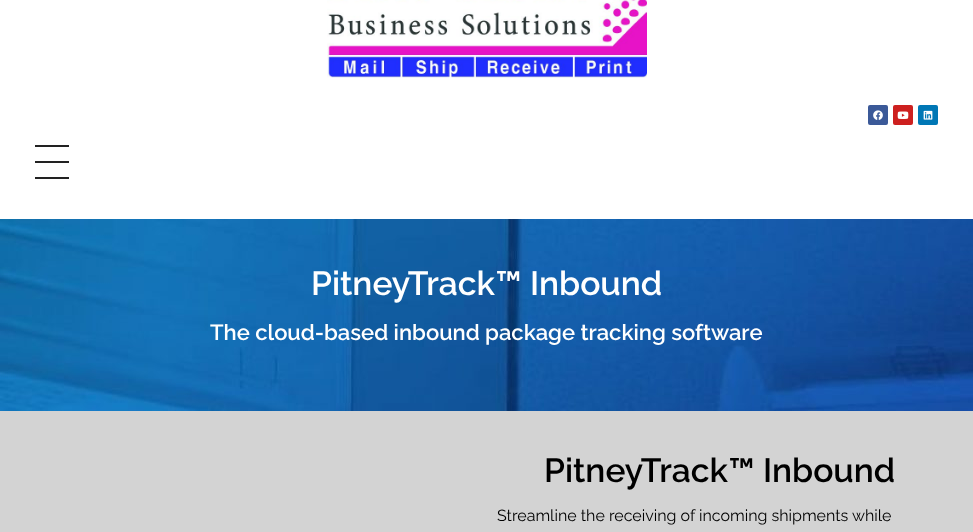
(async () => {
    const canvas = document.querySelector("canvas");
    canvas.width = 973;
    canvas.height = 532;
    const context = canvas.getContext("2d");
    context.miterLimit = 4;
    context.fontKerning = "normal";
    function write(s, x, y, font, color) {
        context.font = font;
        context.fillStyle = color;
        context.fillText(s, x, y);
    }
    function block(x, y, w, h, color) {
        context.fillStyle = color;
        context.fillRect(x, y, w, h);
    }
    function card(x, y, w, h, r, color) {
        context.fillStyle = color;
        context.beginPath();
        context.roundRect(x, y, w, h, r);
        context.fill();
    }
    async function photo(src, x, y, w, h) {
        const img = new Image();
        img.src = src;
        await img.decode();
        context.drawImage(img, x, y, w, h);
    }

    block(0, 0, 973, 532, "rgb(255, 255, 255)");
    await photo("media/1.png", 327, 0, 320, 78);
    card(868, 105, 20, 20, 2, "rgb(59, 89, 152)");
    await photo("media/2.png", 873, 110, 10, 10);
    card(893, 105, 20, 20, 2, "rgb(205, 32, 31)");
    await photo("media/3.png", 897, 111, 12, 8);
    card(918, 105, 20, 20, 2, "rgb(0, 119, 181)");
    await photo("media/4.png", 923, 110, 10, 10);
    block(35, 145, 34, 2, "rgb(34, 34, 34)");
    block(35, 161, 34, 2, "rgb(34, 34, 34)");
    block(35, 177, 34, 2, "rgb(34, 34, 34)");
    await photo("media/5.png", 0, 219, 973, 192);
    write("PitneyTrack™ Inbound", 311, 295, "600 33.6px Raleway", "rgb(255, 255, 255)");
    write("The cloud-based inbound package tracking software", 210, 340, "600 22px Raleway", "rgb(255, 255, 255)");
    block(0, 411, 973, 121, "rgb(211, 211, 211)");
    write("PitneyTrack™ Inbound", 544, 482, "600 33.6px Raleway", "rgb(0, 0, 0)");
    write("Streamline the receiving of incoming shipments while", 497, 521, "16px Raleway", "rgb(0, 0, 0)");
})();
